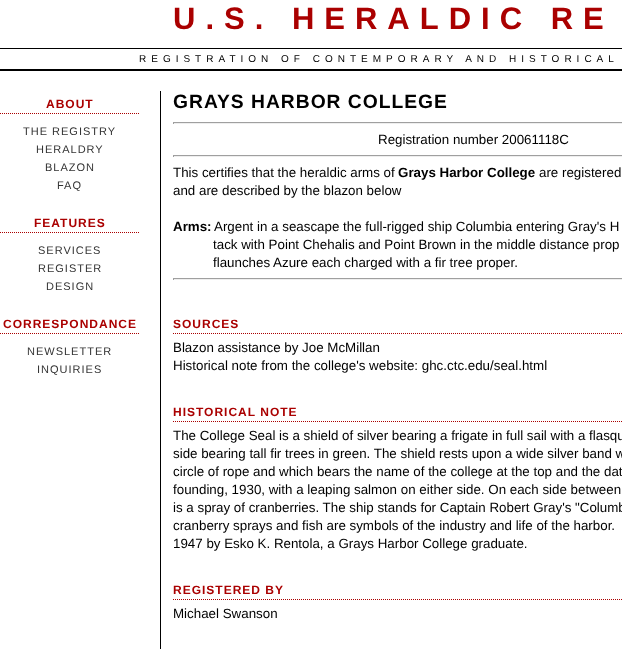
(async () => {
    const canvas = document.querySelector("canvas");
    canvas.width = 622;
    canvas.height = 649;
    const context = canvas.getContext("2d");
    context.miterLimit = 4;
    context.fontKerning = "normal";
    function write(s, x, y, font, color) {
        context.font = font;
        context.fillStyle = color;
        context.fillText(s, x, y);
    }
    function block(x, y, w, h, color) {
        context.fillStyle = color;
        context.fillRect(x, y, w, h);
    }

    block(0, 0, 622, 649, "rgb(255, 255, 255)");
    block(0, 69, 622, 2, "rgb(0, 0, 0)");
    block(0, 48, 622, 1, "rgb(0, 0, 0)");
    context.letterSpacing = "10px";
    write("U.S. HERALDIC RE", 173, 29, "bold 31px Liberation Sans", "rgb(170, 0, 0)");
    context.letterSpacing = "5px";
    write("REGISTRATION OF CONTEMPORARY AND HISTORICAL", 139, 62, "10px Liberation Sans", "rgb(0, 0, 0)");
    context.beginPath();
    context.moveTo(0, 113.5);
    context.lineTo(140, 113.5);
    context.strokeStyle = "rgb(170, 0, 0)";
    context.setLineDash([1, 1]);
    context.stroke();
    context.letterSpacing = "1px";
    write("ABOUT", 46, 108, "bold 12px Liberation Sans", "rgb(170, 0, 0)");
    write("THE REGISTRY", 23, 135, "11px Liberation Sans", "rgb(51, 51, 51)");
    write("HERALDRY", 36, 153, "11px Liberation Sans", "rgb(51, 51, 51)");
    write("BLAZON", 45, 171, "11px Liberation Sans", "rgb(51, 51, 51)");
    write("FAQ", 57, 189, "11px Liberation Sans", "rgb(51, 51, 51)");
    context.beginPath();
    context.moveTo(0, 232.5);
    context.lineTo(140, 232.5);
    context.stroke();
    write("FEATURES", 34, 227, "bold 12px Liberation Sans", "rgb(170, 0, 0)");
    write("SERVICES", 38, 254, "11px Liberation Sans", "rgb(51, 51, 51)");
    write("REGISTER", 38, 272, "11px Liberation Sans", "rgb(51, 51, 51)");
    write("DESIGN", 46, 290, "11px Liberation Sans", "rgb(51, 51, 51)");
    context.beginPath();
    context.moveTo(0, 333.5);
    context.lineTo(140, 333.5);
    context.stroke();
    write("CORRESPONDANCE", 3, 328, "bold 12px Liberation Sans", "rgb(170, 0, 0)");
    write("NEWSLETTER", 27, 355, "11px Liberation Sans", "rgb(51, 51, 51)");
    write("INQUIRIES", 37, 373, "11px Liberation Sans", "rgb(51, 51, 51)");
    block(160, 91, 1, 558, "rgb(0, 0, 0)");
    write("GRAYS HARBOR COLLEGE", 173, 108, "bold 19.25px Liberation Sans", "rgb(0, 0, 0)");
    block(173, 122, 449, 1, "rgb(159, 159, 159)");
    block(173, 123, 449, 1, "rgb(238, 238, 238)");
    block(173, 122, 1, 2, "rgb(159, 159, 159)");
    context.letterSpacing = "0px";
    write("Registration number 20061118C", 378, 144, "13.35px Liberation Sans", "rgb(0, 0, 0)");
    block(173, 155, 449, 1, "rgb(159, 159, 159)");
    block(173, 156, 449, 1, "rgb(238, 238, 238)");
    block(173, 155, 1, 2, "rgb(159, 159, 159)");
    write("This certifies that the heraldic arms of", 173, 177, "13.35px Liberation Sans", "rgb(0, 0, 0)");
    write("Grays Harbor College", 398, 177, "bold 13.35px Liberation Sans", "rgb(0, 0, 0)");
    write("are registered", 539, 177, "13.35px Liberation Sans", "rgb(0, 0, 0)");
    write("and are described by the blazon below", 173, 195, "13.35px Liberation Sans", "rgb(0, 0, 0)");
    write("Arms:", 173, 231, "bold 13.35px Liberation Sans", "rgb(0, 0, 0)");
    write("Argent in a seascape the full-rigged ship Columbia entering Gray's H", 214, 231, "13.35px Liberation Sans", "rgb(0, 0, 0)");
    write("tack with Point Chehalis and Point Brown in the middle distance prop", 213, 249, "13.35px Liberation Sans", "rgb(0, 0, 0)");
    write("flaunches Azure each charged with a fir tree proper.", 213, 267, "13.35px Liberation Sans", "rgb(0, 0, 0)");
    block(173, 278, 449, 1, "rgb(159, 159, 159)");
    block(173, 279, 449, 1, "rgb(238, 238, 238)");
    block(173, 278, 1, 2, "rgb(159, 159, 159)");
    context.beginPath();
    context.moveTo(173, 333.5);
    context.lineTo(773, 333.5);
    context.stroke();
    context.letterSpacing = "1px";
    write("SOURCES", 173, 328, "bold 12px Liberation Sans", "rgb(170, 0, 0)");
    context.letterSpacing = "0px";
    write("Blazon assistance by Joe McMillan", 173, 352, "13.35px Liberation Sans", "rgb(0, 0, 0)");
    write("Historical note from the college's website: ghc.ctc.edu/seal.html", 173, 370, "13.35px Liberation Sans", "rgb(0, 0, 0)");
    context.beginPath();
    context.moveTo(173, 421.5);
    context.lineTo(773, 421.5);
    context.stroke();
    context.letterSpacing = "1px";
    write("HISTORICAL NOTE", 173, 416, "bold 12px Liberation Sans", "rgb(170, 0, 0)");
    context.letterSpacing = "0px";
    write("The College Seal is a shield of silver bearing a frigate in full sail with a flasqu", 173, 440, "13.35px Liberation Sans", "rgb(0, 0, 0)");
    write("side bearing tall fir trees in green. The shield rests upon a wide silver band w", 173, 458, "13.35px Liberation Sans", "rgb(0, 0, 0)");
    write("circle of rope and which bears the name of the college at the top and the dat", 173, 476, "13.35px Liberation Sans", "rgb(0, 0, 0)");
    write("founding, 1930, with a leaping salmon on either side. On each side between", 173, 494, "13.35px Liberation Sans", "rgb(0, 0, 0)");
    write("is a spray of cranberries. The ship stands for Captain Robert Gray's \"Columb", 173, 512, "13.35px Liberation Sans", "rgb(0, 0, 0)");
    write("cranberry sprays and fish are symbols of the industry and life of the harbor.", 173, 530, "13.35px Liberation Sans", "rgb(0, 0, 0)");
    write("1947 by Esko K. Rentola, a Grays Harbor College graduate.", 173, 548, "13.35px Liberation Sans", "rgb(0, 0, 0)");
    context.beginPath();
    context.moveTo(173, 599.5);
    context.lineTo(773, 599.5);
    context.stroke();
    context.letterSpacing = "1px";
    write("REGISTERED BY", 173, 594, "bold 12px Liberation Sans", "rgb(170, 0, 0)");
    context.letterSpacing = "0px";
    write("Michael Swanson", 173, 618, "13.35px Liberation Sans", "rgb(0, 0, 0)");
})();
